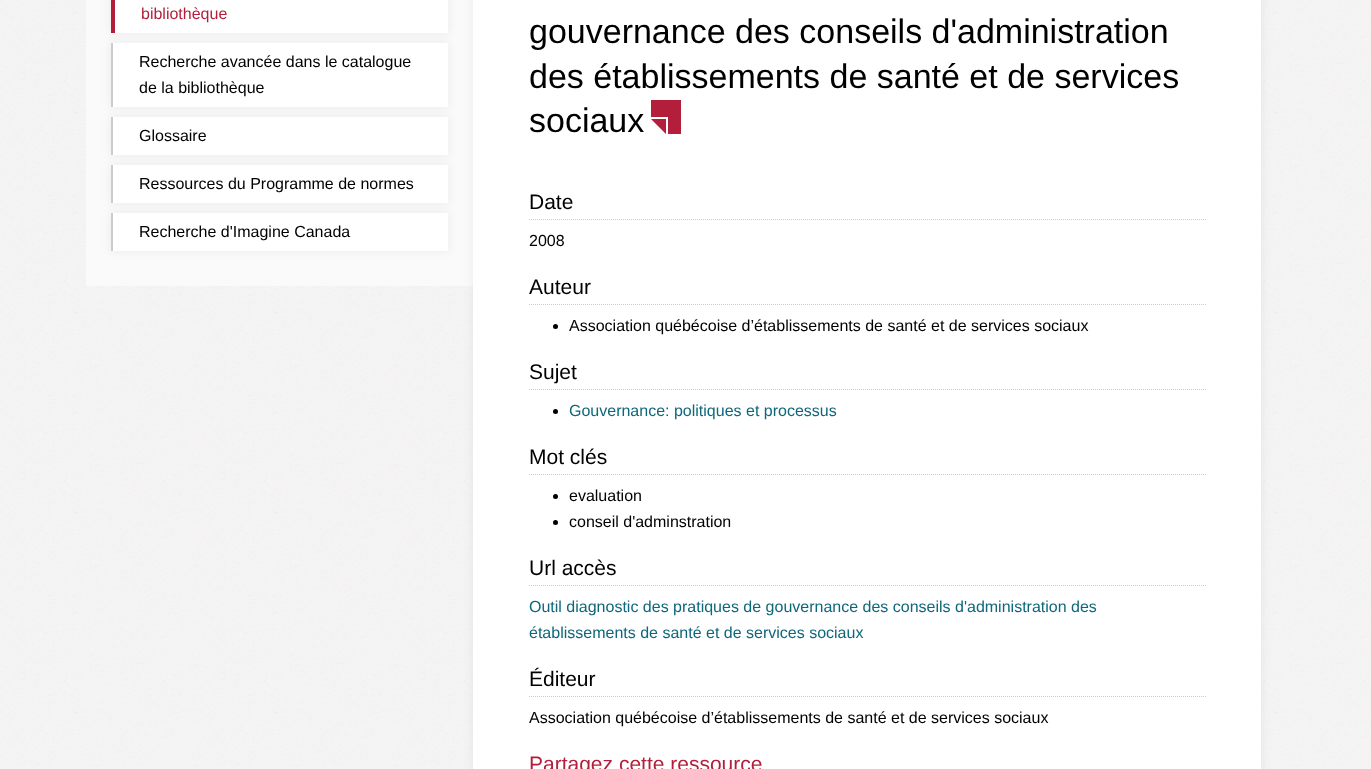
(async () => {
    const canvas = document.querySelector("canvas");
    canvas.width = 1371;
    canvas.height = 769;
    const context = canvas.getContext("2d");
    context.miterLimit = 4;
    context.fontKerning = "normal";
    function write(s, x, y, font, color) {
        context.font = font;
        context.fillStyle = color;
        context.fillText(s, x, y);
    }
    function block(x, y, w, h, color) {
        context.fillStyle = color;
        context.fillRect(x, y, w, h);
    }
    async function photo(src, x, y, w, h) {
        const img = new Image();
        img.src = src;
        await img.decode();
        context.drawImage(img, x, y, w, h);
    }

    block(0, 0, 1371, 769, "rgb(245, 244, 244)");
    await photo("media/1.png", 0, 0, 1371, 767);
    block(86, 0, 387, 286, "rgb(250, 250, 250)");
    context.fillStyle = "rgba(0, 0, 0, 0.05)";
    context.filter = "blur(5px)";
    context.beginPath();
    context.rect(110, -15, 339, 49);
    context.fill();
    context.filter = "none";
    block(115, 0, 333, 33, "rgb(255, 255, 255)");
    block(111, 0, 4, 33, "rgb(179, 30, 59)");
    write("bibliothèque", 141, 19, "16px Liberation Sans", "rgb(179, 30, 59)");
    context.fillStyle = "rgba(0, 0, 0, 0.05)";
    context.filter = "blur(5px)";
    context.beginPath();
    context.rect(110, 42, 339, 66);
    context.fill();
    context.filter = "none";
    block(113, 43, 335, 64, "rgb(255, 255, 255)");
    block(111, 43, 2, 64, "rgb(204, 204, 204)");
    write("Recherche avancée dans le catalogue", 139, 67, "16px Liberation Sans", "rgb(0, 0, 0)");
    write("de la bibliothèque", 139, 93, "16px Liberation Sans", "rgb(0, 0, 0)");
    context.fillStyle = "rgba(0, 0, 0, 0.05)";
    context.filter = "blur(5px)";
    context.beginPath();
    context.rect(110, 116, 339, 40);
    context.fill();
    context.filter = "none";
    block(113, 117, 335, 38, "rgb(255, 255, 255)");
    block(111, 117, 2, 38, "rgb(204, 204, 204)");
    write("Glossaire", 139, 141, "16px Liberation Sans", "rgb(0, 0, 0)");
    context.fillStyle = "rgba(0, 0, 0, 0.05)";
    context.filter = "blur(5px)";
    context.beginPath();
    context.rect(110, 164, 339, 40);
    context.fill();
    context.filter = "none";
    block(113, 165, 335, 38, "rgb(255, 255, 255)");
    block(111, 165, 2, 38, "rgb(204, 204, 204)");
    write("Ressources du Programme de normes", 139, 189, "16px Liberation Sans", "rgb(0, 0, 0)");
    context.fillStyle = "rgba(0, 0, 0, 0.05)";
    context.filter = "blur(5px)";
    context.beginPath();
    context.rect(110, 212, 339, 40);
    context.fill();
    context.filter = "none";
    block(113, 213, 335, 38, "rgb(255, 255, 255)");
    block(111, 213, 2, 38, "rgb(204, 204, 204)");
    write("Recherche d'Imagine Canada", 139, 237, "16px Liberation Sans", "rgb(0, 0, 0)");
    context.fillStyle = "rgba(0, 0, 0, 0.05)";
    context.filter = "blur(5px)";
    context.beginPath();
    context.rect(472, -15, 790, 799);
    context.fill();
    context.filter = "none";
    block(473, 0, 788, 769, "rgb(255, 255, 255)");
    write("gouvernance des conseils d'administration", 529, 43, "34px Liberation Sans", "rgb(0, 0, 0)");
    write("des établissements de santé et de services", 529, 88, "34px Liberation Sans", "rgb(0, 0, 0)");
    write("sociaux", 529, 132, "34px Liberation Sans", "rgb(0, 0, 0)");
    context.fillStyle = "rgb(179, 30, 59)";
    context.beginPath();
    context.moveTo(666, 134);
    context.lineTo(651, 119);
    context.lineTo(666, 119);
    context.closePath();
    context.moveTo(651, 100);
    context.lineTo(681, 100);
    context.lineTo(681, 134);
    context.lineTo(668, 134);
    context.lineTo(668, 117);
    context.lineTo(651, 117);
    context.closePath();
    context.fill();
    context.beginPath();
    context.moveTo(529, 219.5);
    context.lineTo(1206, 219.5);
    context.strokeStyle = "rgb(204, 204, 204)";
    context.setLineDash([1, 1]);
    context.stroke();
    write("Date", 529, 209, "21px Liberation Sans", "rgb(0, 0, 0)");
    write("2008", 529, 246, "16px Liberation Sans", "rgb(0, 0, 0)");
    context.beginPath();
    context.moveTo(529, 304.5);
    context.lineTo(1206, 304.5);
    context.stroke();
    write("Auteur", 529, 294, "21px Liberation Sans", "rgb(0, 0, 0)");
    context.beginPath();
    context.arc(555.5, 326.5, 2.5, 0, Math.PI * 2);
    context.fill();
    write("Association québécoise d’établissements de santé et de services sociaux", 569, 331, "16px Liberation Sans", "rgb(0, 0, 0)");
    context.beginPath();
    context.moveTo(529, 389.5);
    context.lineTo(1206, 389.5);
    context.stroke();
    write("Sujet", 529, 379, "21px Liberation Sans", "rgb(0, 0, 0)");
    context.beginPath();
    context.arc(555.5, 411.5, 2.5, 0, Math.PI * 2);
    context.fill();
    write("Gouvernance: politiques et processus", 569, 416, "16px Liberation Sans", "rgb(14, 103, 123)");
    context.beginPath();
    context.moveTo(529, 474.5);
    context.lineTo(1206, 474.5);
    context.stroke();
    write("Mot clés", 529, 464, "21px Liberation Sans", "rgb(0, 0, 0)");
    context.beginPath();
    context.arc(555.5, 496.5, 2.5, 0, Math.PI * 2);
    context.fill();
    write("evaluation", 569, 501, "16px Liberation Sans", "rgb(0, 0, 0)");
    context.beginPath();
    context.arc(555.5, 522.5, 2.5, 0, Math.PI * 2);
    context.fill();
    write("conseil d'adminstration", 569, 527, "16px Liberation Sans", "rgb(0, 0, 0)");
    context.beginPath();
    context.moveTo(529, 585.5);
    context.lineTo(1206, 585.5);
    context.stroke();
    write("Url accès", 529, 575, "21px Liberation Sans", "rgb(0, 0, 0)");
    write("Outil diagnostic des pratiques de gouvernance des conseils d'administration des", 529, 612, "16px Liberation Sans", "rgb(14, 103, 123)");
    write("établissements de santé et de services sociaux", 529, 638, "16px Liberation Sans", "rgb(14, 103, 123)");
    context.beginPath();
    context.moveTo(529, 696.5);
    context.lineTo(1206, 696.5);
    context.stroke();
    write("Éditeur", 529, 686, "21px Liberation Sans", "rgb(0, 0, 0)");
    write("Association québécoise d’établissements de santé et de services sociaux", 529, 723, "16px Liberation Sans", "rgb(0, 0, 0)");
    write("Partagez cette ressource", 529, 771, "21px Liberation Sans", "rgb(179, 30, 59)");
})();
